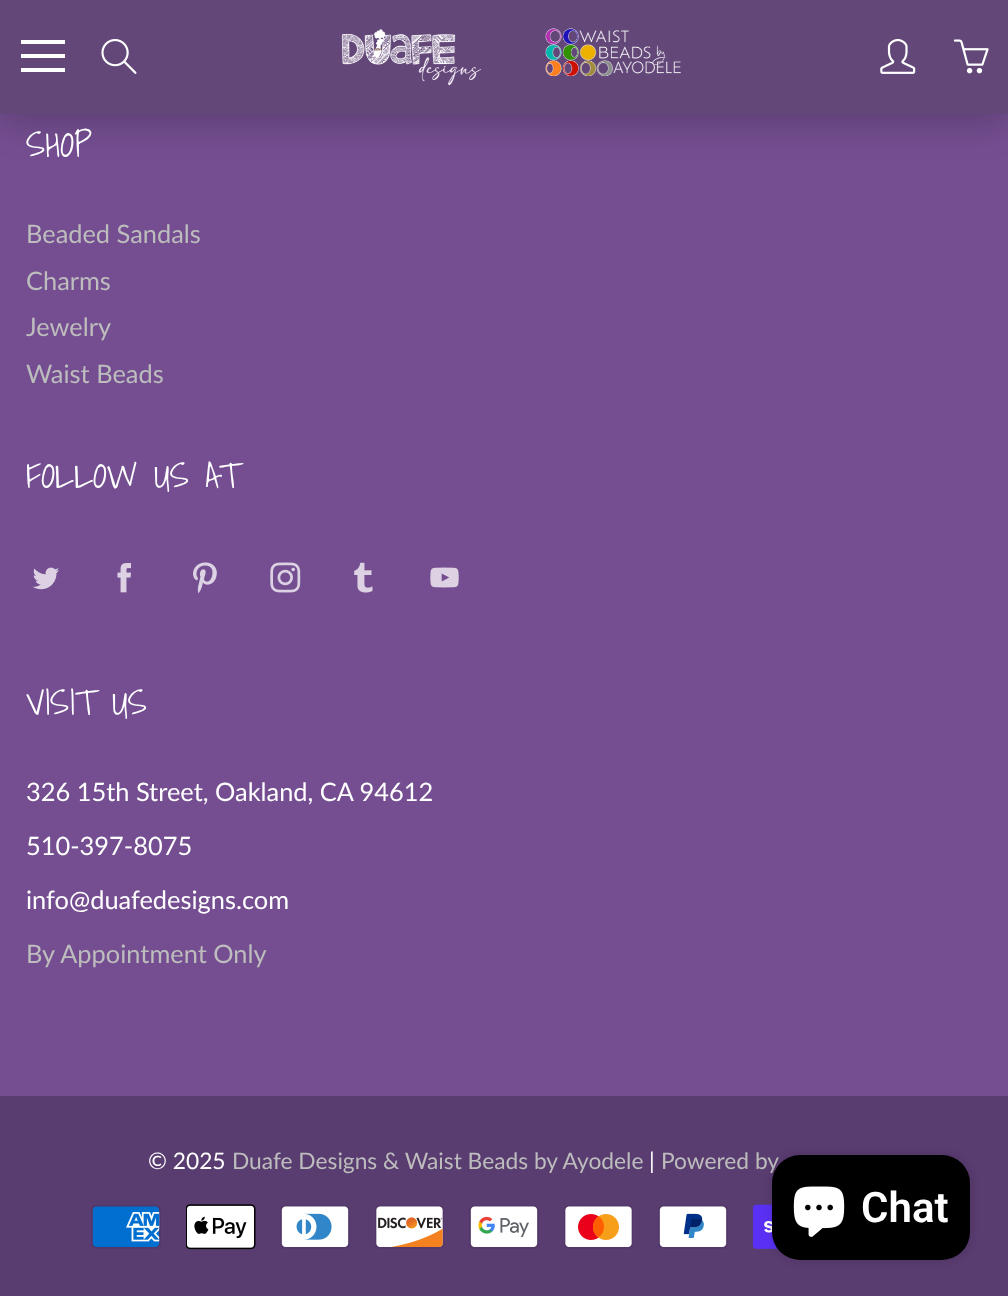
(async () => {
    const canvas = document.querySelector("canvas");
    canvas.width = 1008;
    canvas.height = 1296;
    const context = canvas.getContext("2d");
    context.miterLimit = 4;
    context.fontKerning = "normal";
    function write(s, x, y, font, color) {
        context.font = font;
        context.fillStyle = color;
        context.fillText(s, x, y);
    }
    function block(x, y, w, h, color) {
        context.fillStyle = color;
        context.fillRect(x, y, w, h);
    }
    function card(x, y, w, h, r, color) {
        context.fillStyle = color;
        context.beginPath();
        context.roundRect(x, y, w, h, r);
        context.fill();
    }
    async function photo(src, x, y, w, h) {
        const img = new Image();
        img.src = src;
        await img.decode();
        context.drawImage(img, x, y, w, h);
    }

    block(0, 0, 1008, 1296, "rgb(116, 78, 145)");
    context.fillStyle = "rgba(0, 0, 0, 0.2)";
    context.filter = "blur(17.5px)";
    context.beginPath();
    context.rect(0, 9, 1008, 114);
    context.fill();
    context.filter = "none";
    block(0, 0, 1008, 114, "rgb(98, 71, 120)");
    block(21, 54, 44, 4, "rgb(255, 255, 255)");
    block(21, 40, 44, 4, "rgb(255, 255, 255)");
    block(21, 68, 44, 4, "rgb(255, 255, 255)");
    await photo("media/1.png", 101, 38, 36, 36);
    await photo("media/2.png", 341, 28, 340, 58);
    await photo("media/3.png", 880, 38, 36, 36);
    await photo("media/4.png", 953, 39, 36, 35);
    write("SHOP", 26, 157, "35.5px Shadows Into Light", "rgb(255, 255, 255)");
    write("Beaded Sandals", 26, 243, "25.4px Lato", "rgb(189, 189, 189)");
    write("Charms", 26, 290, "25.4px Lato", "rgb(189, 189, 189)");
    write("Jewelry", 26, 336, "25.4px Lato", "rgb(189, 189, 189)");
    write("Waist Beads", 26, 383, "25.4px Lato", "rgb(189, 189, 189)");
    write("FOLLOW US AT", 26, 488, "35.5px Shadows Into Light", "rgb(255, 255, 255)");
    await photo("media/5.png", 32, 567, 27, 23);
    await photo("media/6.png", 117, 563, 14, 30);
    await photo("media/7.png", 193, 562, 24, 32);
    await photo("media/8.png", 270, 562, 31, 31);
    await photo("media/9.png", 354, 562, 19, 31);
    await photo("media/10.png", 430, 567, 29, 21);
    write("VISIT US", 26, 715, "35.5px Shadows Into Light", "rgb(255, 255, 255)");
    write("326 15th Street, Oakland, CA 94612", 26, 801, "25.4px Lato", "rgb(255, 255, 255)");
    write("510-397-8075", 26, 855, "25.4px Lato", "rgb(255, 255, 255)");
    write("info@duafedesigns.com", 26, 909, "25.4px Lato", "rgb(255, 255, 255)");
    write("By Appointment Only", 26, 963, "25.4px Lato", "rgb(189, 189, 189)");
    block(0, 1096, 1008, 200, "rgb(89, 60, 112)");
    write("© 2025", 148, 1169, "22.75px Lato", "rgb(255, 255, 255)");
    write("Duafe Designs & Waist Beads by Ayodele", 232, 1169, "22.75px Lato", "rgb(189, 189, 189)");
    write("|", 649, 1169, "22.75px Lato", "rgb(255, 255, 255)");
    write("Powered by", 661, 1169, "22.75px Lato", "rgb(189, 189, 189)");
    await photo("media/11.png", 91, 1205, 70, 44);
    await photo("media/12.png", 186, 1204, 70, 46);
    await photo("media/13.png", 280, 1205, 70, 44);
    await photo("media/14.png", 375, 1205, 69, 44);
    await photo("media/15.png", 469, 1205, 70, 44);
    await photo("media/16.png", 564, 1205, 69, 44);
    await photo("media/17.png", 658, 1205, 70, 44);
    await photo("media/18.png", 753, 1204, 25, 45);
    context.fillStyle = "rgba(0, 0, 0, 0.15)";
    context.filter = "blur(4.5px)";
    context.beginPath();
    context.roundRect(772, 1155, 198, 105, 28);
    context.fill();
    context.filter = "none";
    card(772, 1155, 198, 105, 28, "rgb(0, 0, 0)");
    await photo("media/19.png", 793, 1186, 52, 51);
    write("Chat", 861, 1222, "600 42px Roboto", "rgb(255, 255, 255)");
})();
